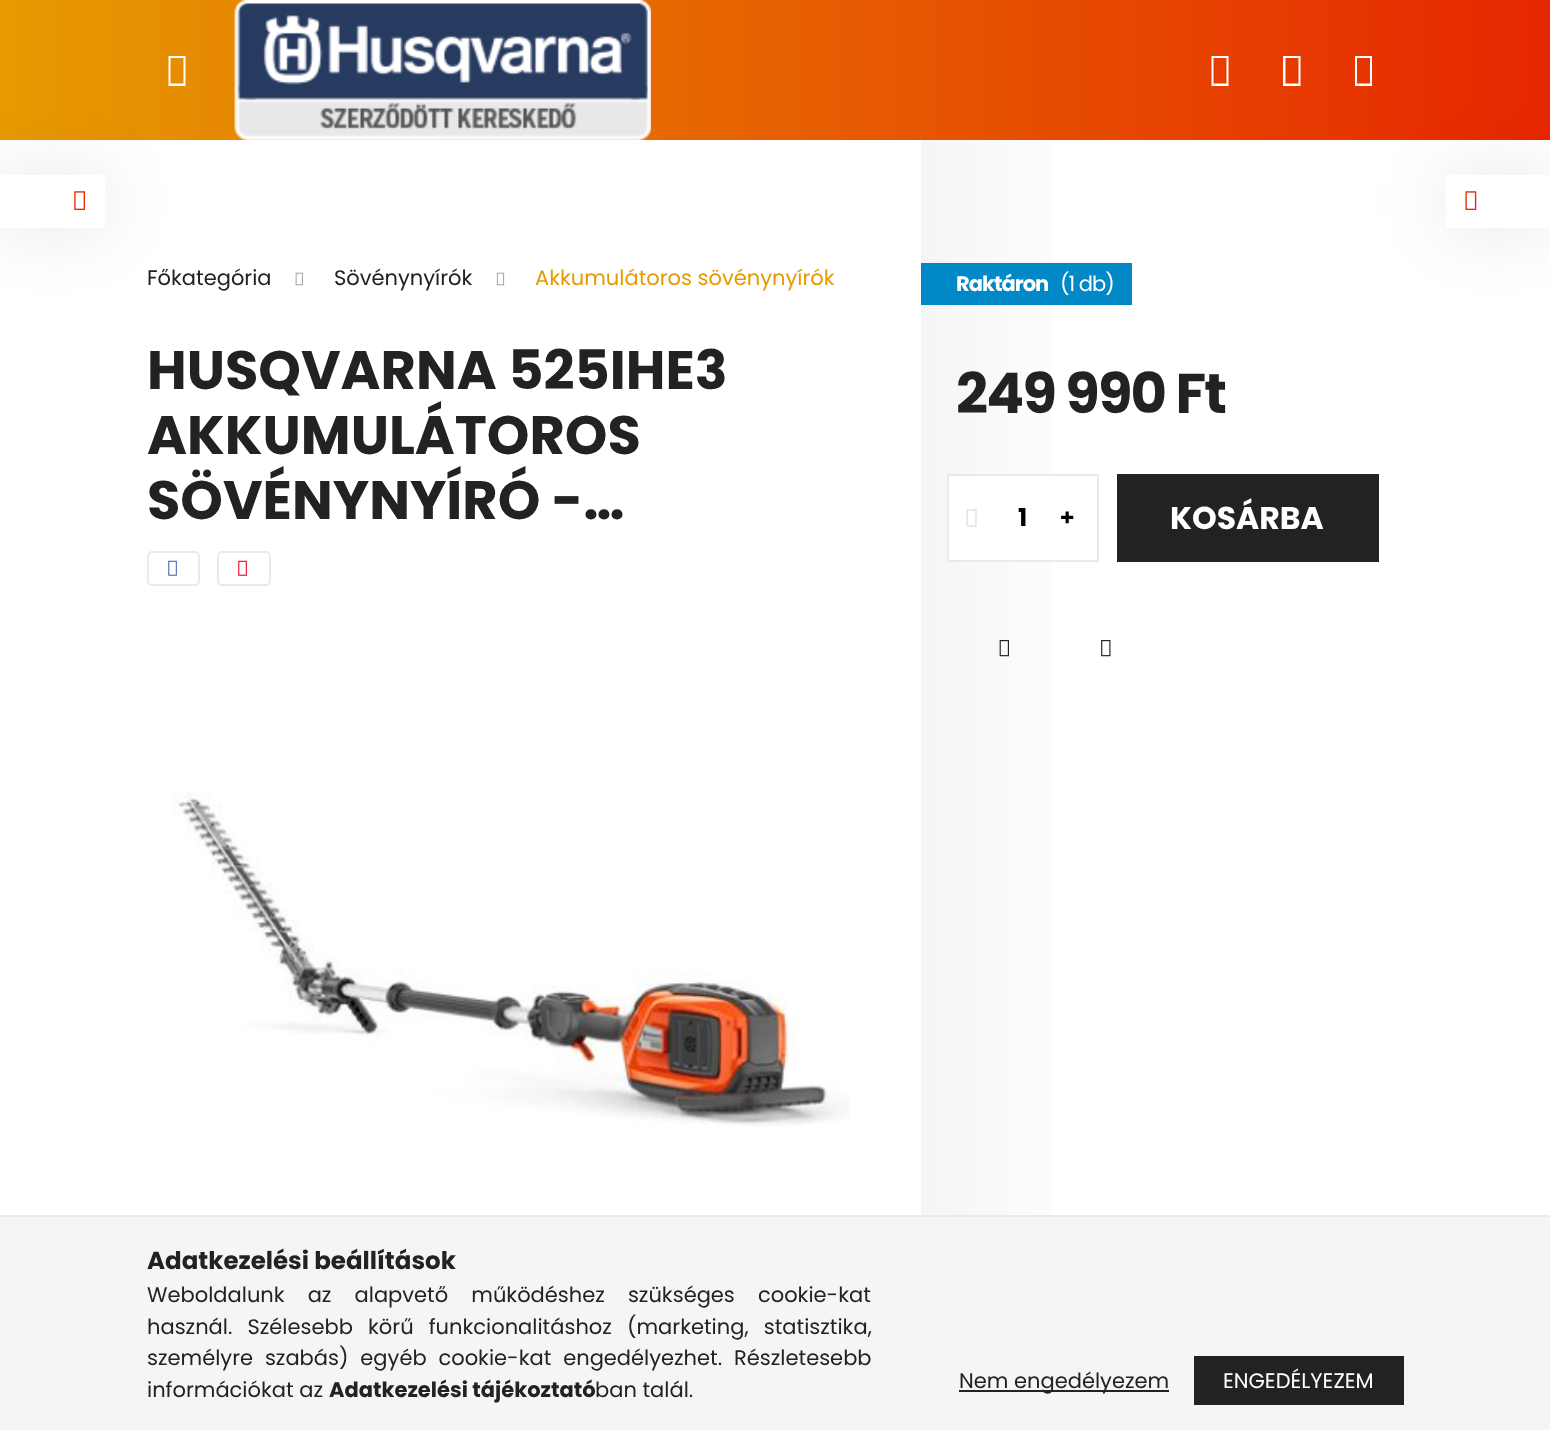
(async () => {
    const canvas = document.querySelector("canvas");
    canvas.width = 1550;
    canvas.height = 1430;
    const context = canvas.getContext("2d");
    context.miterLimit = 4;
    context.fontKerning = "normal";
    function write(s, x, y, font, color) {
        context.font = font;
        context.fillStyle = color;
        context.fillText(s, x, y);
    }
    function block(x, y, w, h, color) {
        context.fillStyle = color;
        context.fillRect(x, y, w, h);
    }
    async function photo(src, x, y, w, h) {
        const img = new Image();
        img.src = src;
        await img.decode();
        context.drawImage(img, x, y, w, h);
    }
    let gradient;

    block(0, 0, 1550, 1430, "rgb(255, 255, 255)");
    gradient = context.createLinearGradient(0, 70, 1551, 70);
    gradient.addColorStop(0, "rgb(230, 154, 1)");
    gradient.addColorStop(1, "rgb(230, 39, 1)");
    context.fillStyle = gradient;
    context.fillRect(0, 0, 1550, 140);
    context.fillStyle = "rgb(255, 255, 255)";
    context.beginPath();
    context.moveTo(168.5, 86);
    context.lineTo(168.5, 56);
    context.lineTo(185.5, 56);
    context.lineTo(185.5, 86);
    context.closePath();
    context.moveTo(170.5, 83.5);
    context.lineTo(183.5, 83.5);
    context.lineTo(183.5, 58);
    context.lineTo(170.5, 58);
    context.closePath();
    context.fill();
    await photo("media/1.png", 234, 0, 417, 140);
    context.beginPath();
    context.moveTo(1211.5, 86);
    context.lineTo(1211.5, 56);
    context.lineTo(1228.5, 56);
    context.lineTo(1228.5, 86);
    context.closePath();
    context.moveTo(1213.5, 83.5);
    context.lineTo(1226.5, 83.5);
    context.lineTo(1226.5, 58);
    context.lineTo(1213.5, 58);
    context.closePath();
    context.fill();
    context.beginPath();
    context.moveTo(1283, 86);
    context.lineTo(1283, 56);
    context.lineTo(1300.5, 56);
    context.lineTo(1300.5, 86);
    context.closePath();
    context.moveTo(1285.5, 83.5);
    context.lineTo(1298.5, 83.5);
    context.lineTo(1298.5, 58);
    context.lineTo(1285.5, 58);
    context.closePath();
    context.fill();
    context.beginPath();
    context.moveTo(1355, 86);
    context.lineTo(1355, 56);
    context.lineTo(1372, 56);
    context.lineTo(1372, 86);
    context.closePath();
    context.moveTo(1357, 83.5);
    context.lineTo(1370, 83.5);
    context.lineTo(1370, 58);
    context.lineTo(1357, 58);
    context.closePath();
    context.fill();
    context.fillStyle = "rgba(0, 0, 0, 0.1)";
    context.filter = "blur(35px)";
    context.beginPath();
    context.rect(0, 175, 105, 53);
    context.fill();
    context.filter = "none";
    block(0, 175, 105, 53, "rgb(255, 255, 255)");
    await photo("media/2.png", 74, 191, 11, 19);
    context.fillStyle = "rgba(0, 0, 0, 0.1)";
    context.filter = "blur(35px)";
    context.beginPath();
    context.rect(1446, 175, 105, 53);
    context.fill();
    context.filter = "none";
    block(1446, 175, 104, 53, "rgb(255, 255, 255)");
    await photo("media/3.png", 1465, 191, 12, 19);
    write("Főkategória", 147, 285, "21px Poppins", "rgb(34, 34, 34)");
    await photo("media/4.png", 295, 272, 8, 14);
    write("Sövénynyírók", 334, 285, "21px Poppins", "rgb(34, 34, 34)");
    await photo("media/5.png", 496, 272, 9, 14);
    write("Akkumulátoros sövénynyírók", 535, 285, "21px Poppins", "rgb(230, 154, 1)");
    write("HUSQVARNA 525IHE3", 147, 389, "bold 54.25px Poppins", "rgb(34, 34, 34)");
    write("AKKUMULÁTOROS", 147, 454, "bold 54.25px Poppins", "rgb(34, 34, 34)");
    write("SÖVÉNYNYÍRÓ -…", 147, 519, "bold 54.25px Poppins", "rgb(34, 34, 34)");
    context.beginPath();
    context.roundRect(148, 552, 51, 33, 4);
    context.strokeStyle = "rgb(234, 234, 234)";
    context.lineWidth = 2;
    context.stroke();
    await photo("media/6.png", 168, 560, 9, 16);
    context.beginPath();
    context.roundRect(218, 552, 52, 33, 4);
    context.stroke();
    await photo("media/7.png", 238, 560, 9, 16);
    await photo("media/8.png", 173, 792, 677, 335);
    gradient = context.createLinearGradient(921, 863, 1404, 863);
    gradient.addColorStop(0, "rgb(245, 245, 245)");
    gradient.addColorStop(0.36, "rgb(255, 255, 255)");
    gradient.addColorStop(1, "rgb(255, 255, 255)");
    context.fillStyle = gradient;
    context.fillRect(921, 140, 130, 1075);
    block(921, 263, 211, 42, "rgb(0, 136, 199)");
    context.letterSpacing = "-1px";
    write("Raktáron", 956, 291, "bold 21px Poppins", "rgb(255, 255, 255)");
    write("(1 db)", 1060, 291, "21px Poppins", "rgb(255, 255, 255)");
    context.letterSpacing = "-1.75px";
    write("249 990 Ft", 956, 413, "bold 56px Poppins", "rgb(34, 34, 34)");
    block(949, 476, 102, 84, "rgb(255, 255, 255)");
    context.strokeRect(948, 475, 150, 86);
    await photo("media/9.png", 966, 509, 11, 18);
    context.letterSpacing = "0px";
    write("1", 1018, 526, "bold 24.5px Poppins", "rgb(0, 0, 0)");
    write("+", 1060, 526, "900 24.5px Noto Sans", "rgb(0, 0, 0)");
    gradient = context.createLinearGradient(592, 518, 1379, 518);
    gradient.addColorStop(0, "rgb(230, 154, 1)");
    gradient.addColorStop(0.33, "rgb(230, 39, 1)");
    gradient.addColorStop(0.67, "rgb(34, 34, 34)");
    gradient.addColorStop(1, "rgb(34, 34, 34)");
    context.fillStyle = gradient;
    context.fillRect(1117, 474, 262, 88);
    write("KOSÁRBA", 1170, 529, "bold 31.5px Poppins", "rgb(255, 255, 255)");
    await photo("media/10.png", 999, 640, 10, 17);
    await photo("media/11.png", 1101, 640, 10, 17);
    block(0, 1217, 1550, 213, "rgb(245, 245, 245)");
    block(0, 1215, 1550, 2, "rgb(234, 234, 234)");
    write("Adatkezelési beállítások", 147, 1269, "bold 24.5px Poppins", "rgb(34, 34, 34)");
    context.wordSpacing = "17.5px";
    write("Weboldalunk az alapvető működéshez szükséges cookie-kat", 147, 1302, "21px Poppins", "rgb(34, 34, 34)");
    context.wordSpacing = "9.5px";
    write("használ. Szélesebb körű funkcionalitáshoz (marketing, statisztika,", 147, 1334, "21px Poppins", "rgb(34, 34, 34)");
    context.wordSpacing = "6.25px";
    write("személyre szabás) egyéb cookie-kat engedélyezhet. Részletesebb", 147, 1365, "21px Poppins", "rgb(34, 34, 34)");
    context.wordSpacing = "0px";
    write("információkat az", 147, 1397, "21px Poppins", "rgb(34, 34, 34)");
    write("Adatkezelési tájékoztató", 329, 1397, "bold 21px Poppins", "rgb(34, 34, 34)");
    write("ban talál.", 595, 1397, "21px Poppins", "rgb(34, 34, 34)");
    block(959, 1390, 210, 2, "rgb(34, 34, 34)");
    write("Nem engedélyezem", 959, 1388, "21px Poppins", "rgb(34, 34, 34)");
    gradient = context.createLinearGradient(774, 1381, 1404, 1381);
    gradient.addColorStop(0, "rgb(230, 154, 1)");
    gradient.addColorStop(0.33, "rgb(230, 39, 1)");
    gradient.addColorStop(0.67, "rgb(34, 34, 34)");
    gradient.addColorStop(1, "rgb(34, 34, 34)");
    context.fillStyle = gradient;
    context.fillRect(1194, 1356, 210, 49);
    write("ENGEDÉLYEZEM", 1223, 1388, "21px Poppins", "rgb(255, 255, 255)");
})();
